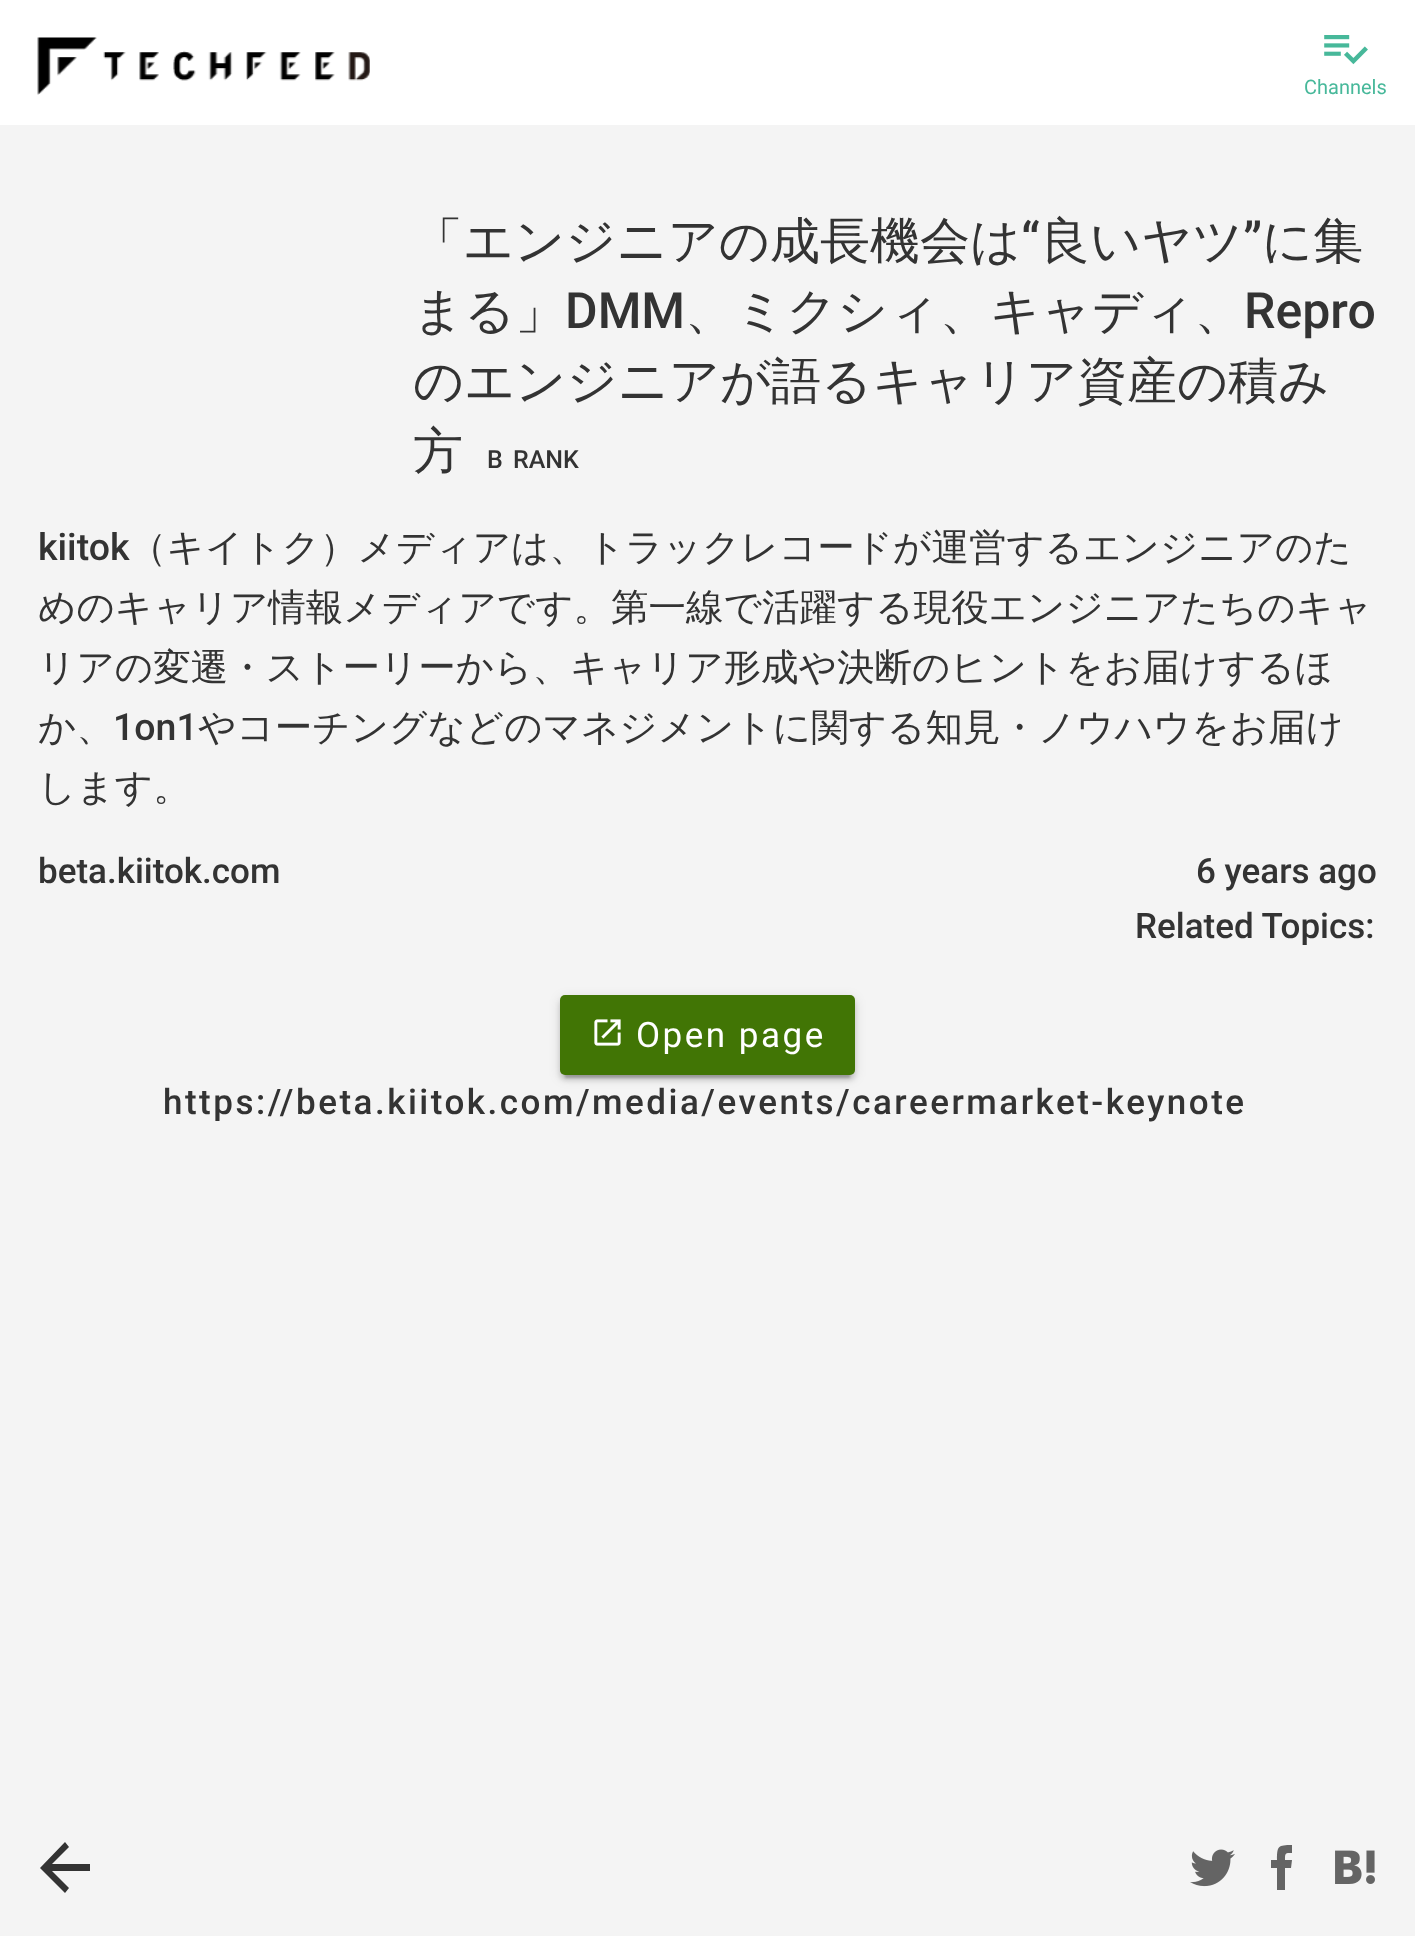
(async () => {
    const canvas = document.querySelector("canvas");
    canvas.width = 1415;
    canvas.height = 1936;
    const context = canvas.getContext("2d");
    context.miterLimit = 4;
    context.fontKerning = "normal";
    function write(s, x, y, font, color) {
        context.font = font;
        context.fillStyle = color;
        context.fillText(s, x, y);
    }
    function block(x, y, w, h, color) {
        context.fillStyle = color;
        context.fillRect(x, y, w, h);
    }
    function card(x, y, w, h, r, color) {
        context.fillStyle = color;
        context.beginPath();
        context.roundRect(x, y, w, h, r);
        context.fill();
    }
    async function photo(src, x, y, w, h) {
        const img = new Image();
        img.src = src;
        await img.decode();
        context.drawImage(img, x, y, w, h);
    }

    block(0, 0, 1415, 1936, "rgb(244, 244, 244)");
    block(0, 0, 1415, 125, "rgb(255, 255, 255)");
    await photo("media/1.png", 37, 37, 333, 58);
    await photo("media/2.png", 1324, 35, 44, 30);
    write("Channels", 1304, 94, "20px Roboto", "rgb(71, 184, 154)");
    write("「エンジニアの成長機会は", 413, 258, "500 50px WenQuanYi Zen Hei", "rgb(51, 51, 51)");
    write("“", 1021, 258, "500 50px Roboto", "rgb(51, 51, 51)");
    write("良いヤツ", 1040, 258, "500 50px WenQuanYi Zen Hei", "rgb(51, 51, 51)");
    write("”", 1243, 258, "500 50px Roboto", "rgb(51, 51, 51)");
    write("に集", 1262, 258, "500 50px WenQuanYi Zen Hei", "rgb(51, 51, 51)");
    write("まる」", 413, 328, "500 50px WenQuanYi Zen Hei", "rgb(51, 51, 51)");
    write("DMM", 565, 328, "500 50px Roboto", "rgb(51, 51, 51)");
    write("、ミクシィ、キャディ、", 685, 328, "500 50px WenQuanYi Zen Hei", "rgb(51, 51, 51)");
    write("Repro", 1244, 328, "500 50px Roboto", "rgb(51, 51, 51)");
    write("のエンジニアが語るキャリア資産の積み", 413, 398, "500 50px WenQuanYi Zen Hei", "rgb(51, 51, 51)");
    write("方", 413, 468, "500 50px WenQuanYi Zen Hei", "rgb(51, 51, 51)");
    write("B", 487, 468, "500 25px Roboto", "rgb(51, 51, 51)");
    write("RANK", 513, 468, "500 25px Roboto", "rgb(51, 51, 51)");
    write("kiitok", 38, 560, "500 37.5px Roboto", "rgb(51, 51, 51)");
    write("（キイトク）メディアは、トラックレコードが運営するエンジニアのた", 129, 560, "500 37.5px WenQuanYi Zen Hei", "rgb(51, 51, 51)");
    write("めのキャリア情報メディアです。第一線で活躍する現役エンジニアたちのキャ", 38, 620, "500 37.5px WenQuanYi Zen Hei", "rgb(51, 51, 51)");
    write("リアの変遷・ストーリーから、キャリア形成や決断のヒントをお届けするほ", 38, 680, "500 37.5px WenQuanYi Zen Hei", "rgb(51, 51, 51)");
    write("か、", 38, 740, "500 37.5px WenQuanYi Zen Hei", "rgb(51, 51, 51)");
    write("1on1", 113, 740, "500 37.5px Roboto", "rgb(51, 51, 51)");
    write("やコーチングなどのマネジメントに関する知見・ノウハウをお届け", 198, 740, "500 37.5px WenQuanYi Zen Hei", "rgb(51, 51, 51)");
    write("します。", 38, 800, "500 37.5px WenQuanYi Zen Hei", "rgb(51, 51, 51)");
    write("beta.kiitok.com", 38, 883, "500 35px Roboto", "rgb(51, 51, 51)");
    write("6 years ago", 1196, 883, "500 35px Roboto", "rgb(51, 51, 51)");
    write("Related Topics:", 1135, 938, "500 35px Roboto", "rgb(51, 51, 51)");
    context.beginPath();
    context.moveTo(90, 1864);
    context.lineTo(90, 1871);
    context.lineTo(52, 1871);
    context.lineTo(69, 1888);
    context.lineTo(65, 1893);
    context.lineTo(40, 1868);
    context.lineTo(65, 1842);
    context.lineTo(69, 1847);
    context.lineTo(52, 1864);
    context.closePath();
    context.fill();
    await photo("media/3.png", 1190, 1849, 45, 38);
    context.fillStyle = "rgb(100, 100, 100)";
    context.beginPath();
    context.moveTo(1285, 1890);
    context.lineTo(1277, 1890);
    context.lineTo(1277, 1868);
    context.lineTo(1271, 1868);
    context.lineTo(1271, 1860);
    context.lineTo(1277, 1860);
    context.bezierCurveTo(1277, 1846, 1278, 1845, 1292, 1845);
    context.lineTo(1292, 1853);
    context.bezierCurveTo(1285, 1853, 1285, 1853, 1285, 1860);
    context.lineTo(1292, 1860);
    context.lineTo(1291, 1868);
    context.lineTo(1285, 1868);
    context.closePath();
    context.fill();
    await photo("media/4.png", 1335, 1850, 40, 34);
    context.fillStyle = "rgba(0, 0, 0, 0.12)";
    context.filter = "blur(6px)";
    context.beginPath();
    context.roundRect(560, 998, 295, 80, 5);
    context.fill();
    context.filter = "none";
    context.fillStyle = "rgba(0, 0, 0, 0.2)";
    context.filter = "blur(1px)";
    context.beginPath();
    context.rect(565, 1008, 285, 70);
    context.fill();
    context.filter = "none";
    context.fillStyle = "rgba(0, 0, 0, 0.14)";
    context.filter = "blur(2.5px)";
    context.beginPath();
    context.roundRect(560, 1000, 295, 80, 5);
    context.fill();
    context.filter = "none";
    card(560, 995, 295, 80, 5, "rgb(65, 117, 5)");
    await photo("media/5.png", 594, 1019, 27, 27);
    context.letterSpacing = "2.5px";
    write("Open page", 636, 1047, "35px Roboto", "rgb(255, 255, 255)");
    write("https://beta.kiitok.com/media/events/careermarket-keynote", 163, 1114, "500 35px Roboto", "rgb(51, 51, 51)");
})();
